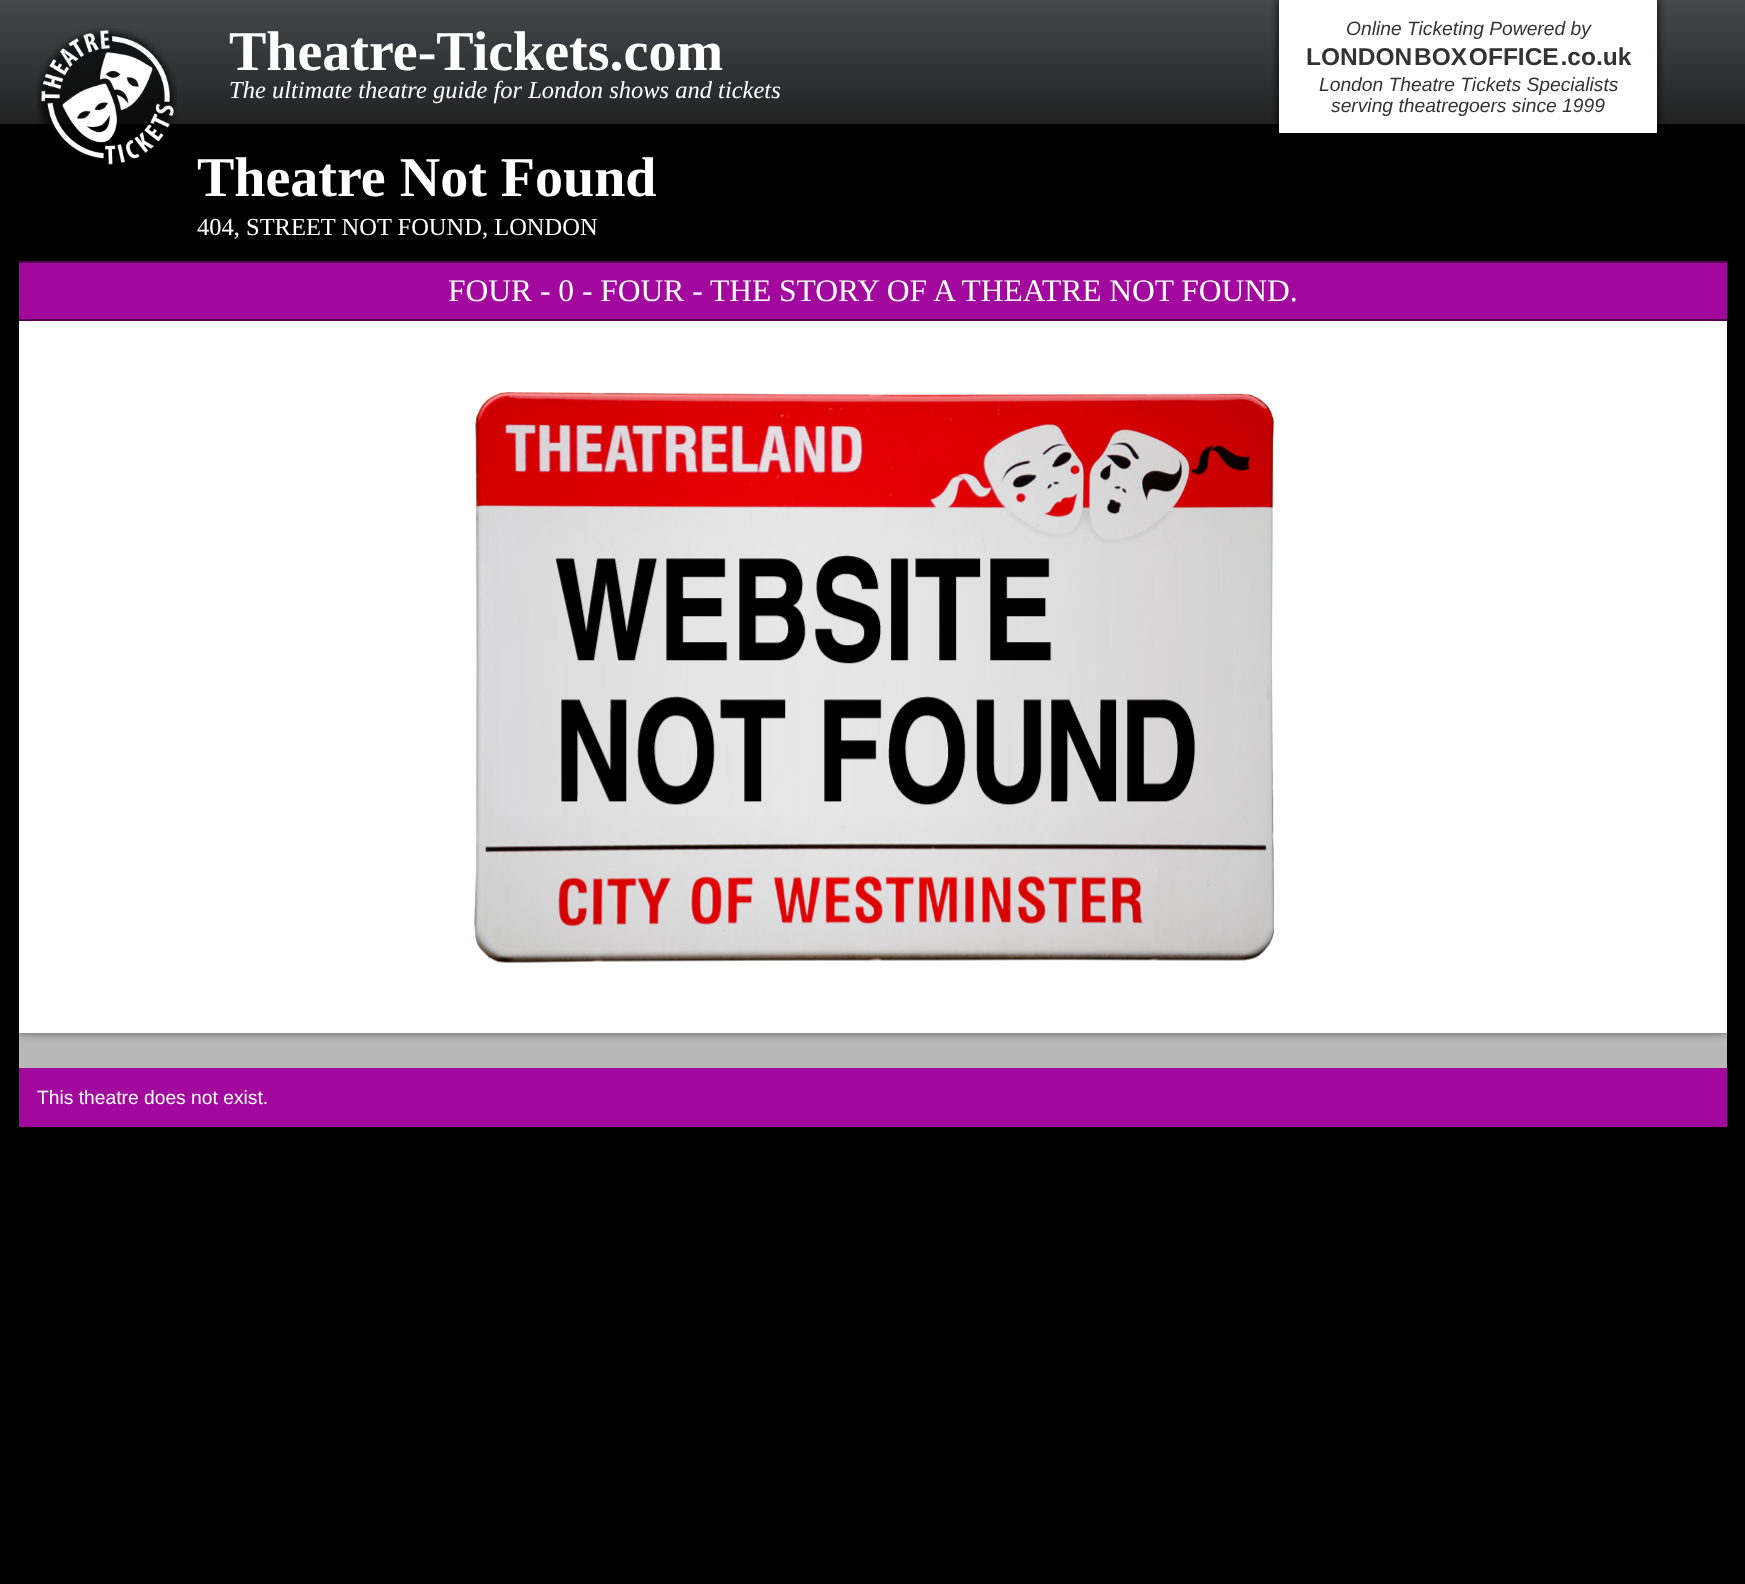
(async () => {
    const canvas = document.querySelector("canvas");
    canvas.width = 1745;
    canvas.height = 1584;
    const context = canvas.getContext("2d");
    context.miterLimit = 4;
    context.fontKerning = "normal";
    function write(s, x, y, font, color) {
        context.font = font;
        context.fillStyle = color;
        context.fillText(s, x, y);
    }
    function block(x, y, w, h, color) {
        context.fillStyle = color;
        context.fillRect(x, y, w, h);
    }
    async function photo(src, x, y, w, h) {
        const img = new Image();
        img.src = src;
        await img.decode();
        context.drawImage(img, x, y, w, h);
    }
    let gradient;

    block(0, 0, 1745, 1584, "rgb(0, 0, 0)");
    gradient = context.createLinearGradient(873, 0, 873, 124);
    gradient.addColorStop(0, "rgb(69, 72, 77)");
    gradient.addColorStop(1, "rgb(34, 34, 34)");
    context.fillStyle = gradient;
    context.fillRect(0, 0, 1745, 124);
    await photo("media/1.png", 37, 28, 140, 137);
    write("Theatre-Tickets.com", 229, 70, "bold 56px Liberation Serif", "rgb(255, 255, 255)");
    write("The ultimate theatre guide for London shows and tickets", 229, 98, "italic 24.5px Liberation Serif", "rgb(255, 255, 255)");
    context.fillStyle = "rgb(0, 0, 0)";
    context.filter = "blur(4.5px)";
    context.beginPath();
    context.rect(1279, 0, 378, 133);
    context.fill();
    context.filter = "none";
    block(1279, 0, 378, 133, "rgb(255, 255, 255)");
    write("Online Ticketing Powered by", 1346, 35, "italic 19.25px Liberation Sans", "rgb(51, 51, 51)");
    context.wordSpacing = "-5px";
    write("LONDON BOX OFFICE .co.uk", 1306, 65, "bold 24.5px Liberation Sans", "rgb(51, 51, 51)");
    context.wordSpacing = "0px";
    write("London Theatre Tickets Specialists", 1319, 91, "italic 19.25px Liberation Sans", "rgb(51, 51, 51)");
    write("serving theatregoers since 1999", 1331, 112, "italic 19.25px Liberation Sans", "rgb(51, 51, 51)");
    write("Theatre Not Found", 197, 196, "bold 56px Liberation Serif", "rgb(255, 255, 255)");
    write("404, STREET NOT FOUND, LONDON", 197, 235, "24.5px Liberation Serif", "rgb(255, 255, 255)");
    block(19, 1033, 1708, 35, "rgb(184, 184, 184)");
    context.fillStyle = "rgba(0, 0, 0, 0.5)";
    context.filter = "blur(4.5px)";
    context.beginPath();
    context.rect(19, 320, 1708, 713);
    context.fill();
    context.filter = "none";
    block(19, 263, 1708, 56, "rgb(163, 8, 158)");
    block(19, 261, 1708, 2, "rgb(83, 2, 79)");
    block(19, 319, 1708, 2, "rgb(83, 2, 79)");
    write("FOUR - 0 - FOUR - THE STORY OF A THEATRE NOT FOUND.", 448, 301, "31.5px Liberation Serif", "rgb(255, 255, 255)");
    block(19, 321, 1708, 712, "rgb(255, 255, 255)");
    await photo("media/2.png", 474, 392, 800, 571);
    block(19, 1068, 1708, 59, "rgb(163, 8, 158)");
    write("This theatre does not exist.", 37, 1104, "19.25px Liberation Sans", "rgb(255, 255, 255)");
})();
